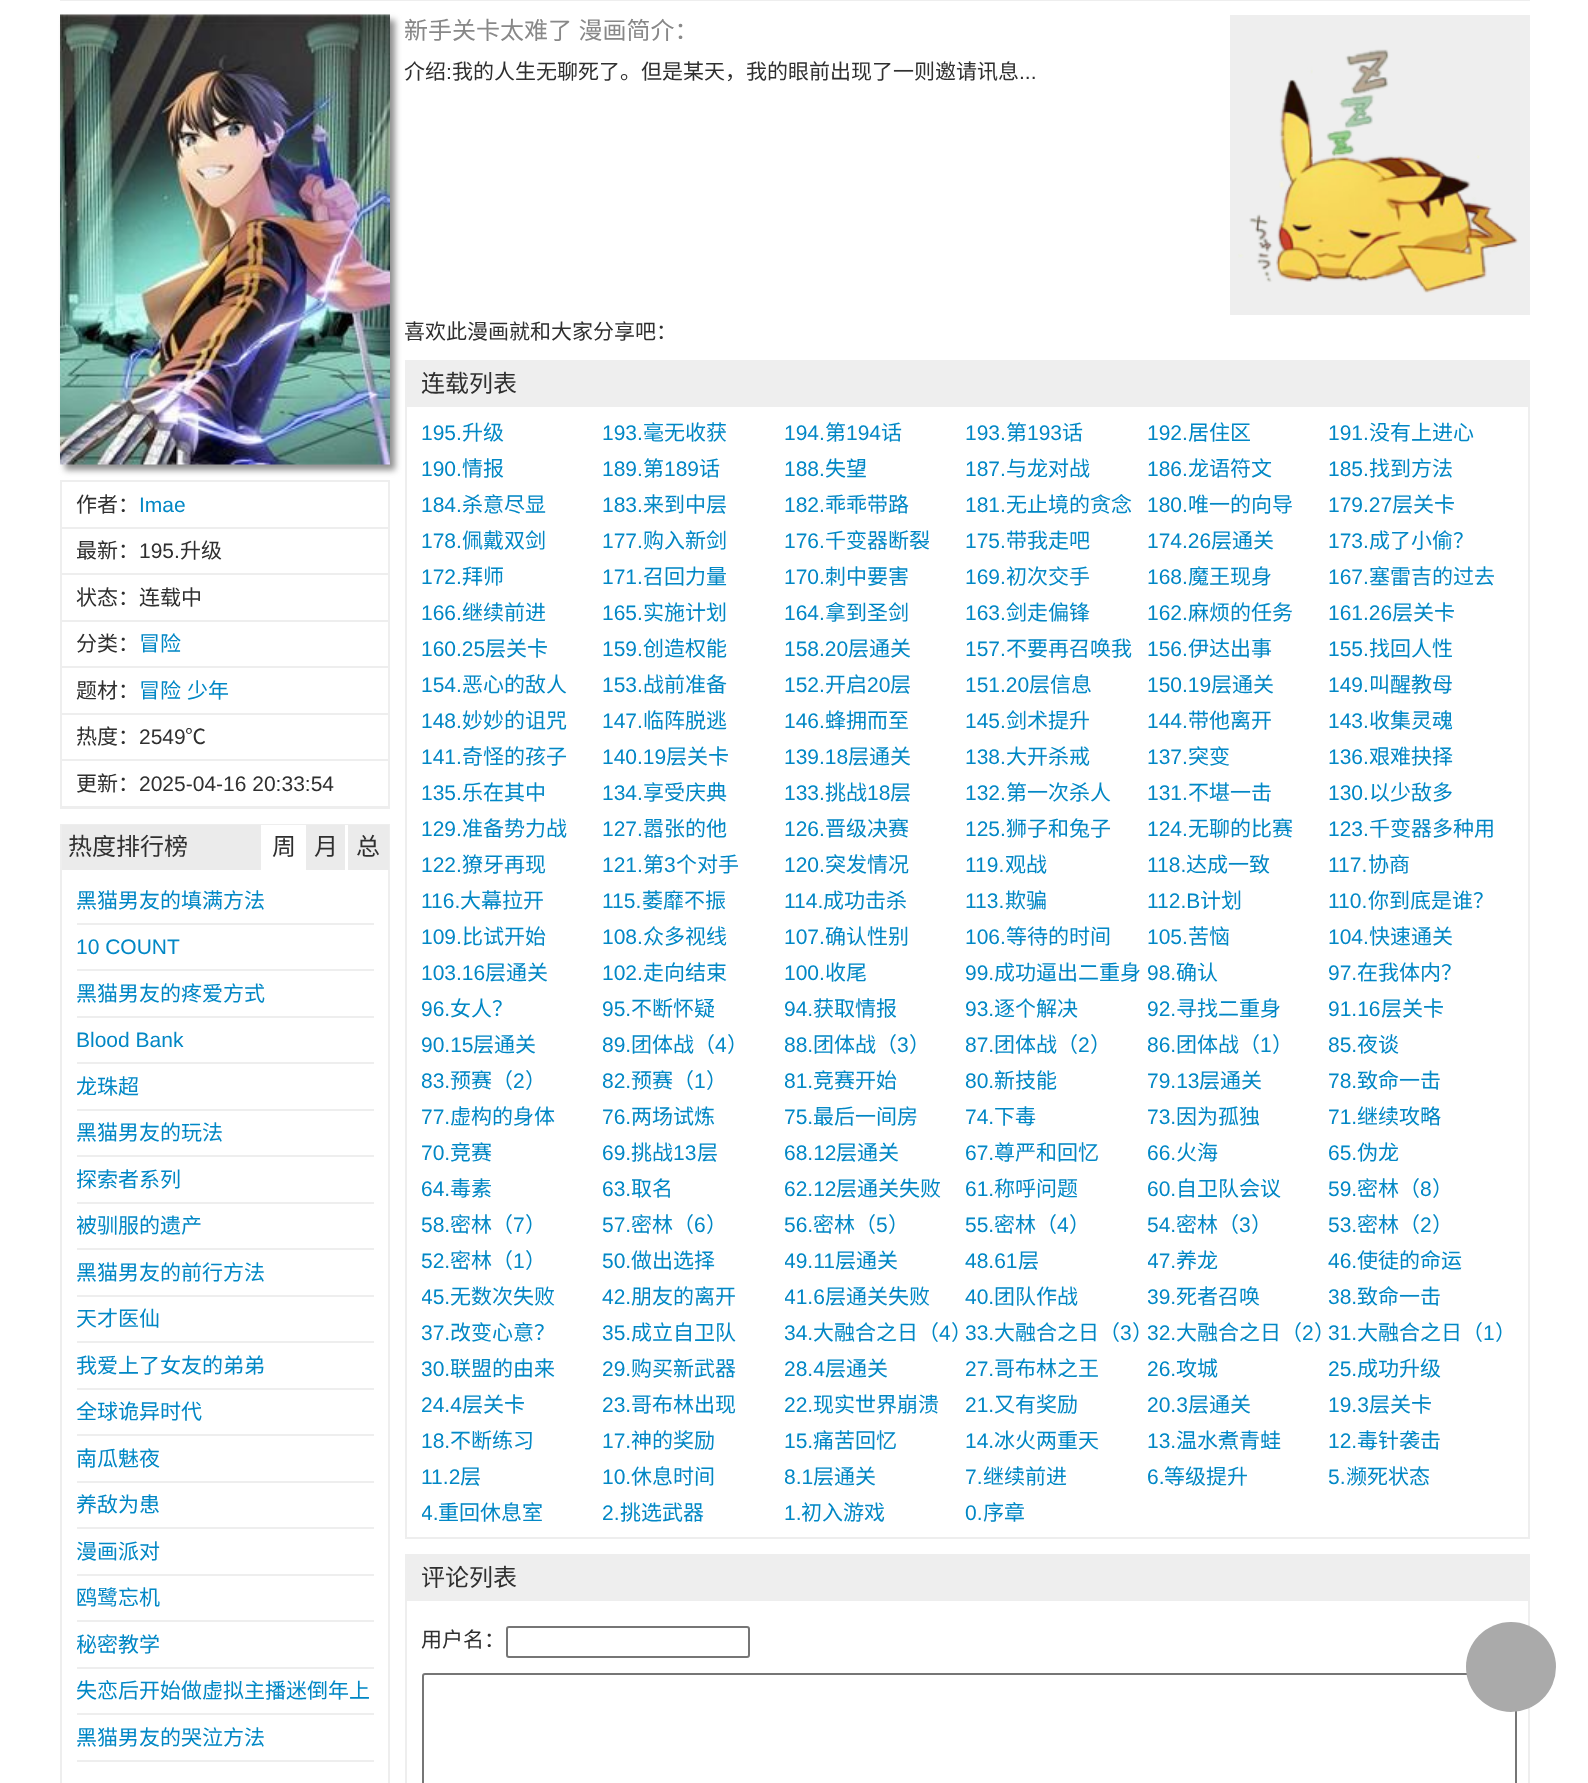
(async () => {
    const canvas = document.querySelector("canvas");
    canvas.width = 1588;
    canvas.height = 1783;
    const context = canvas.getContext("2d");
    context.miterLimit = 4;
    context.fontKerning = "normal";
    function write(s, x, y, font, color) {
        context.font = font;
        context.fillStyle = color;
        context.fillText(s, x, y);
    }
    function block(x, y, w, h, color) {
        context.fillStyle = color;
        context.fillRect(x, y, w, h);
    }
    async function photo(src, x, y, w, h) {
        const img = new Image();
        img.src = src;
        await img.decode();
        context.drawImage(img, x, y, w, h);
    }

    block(0, 0, 1588, 1783, "rgb(255, 255, 255)");
    block(60, 0, 1470, 1, "rgb(238, 238, 238)");
    context.fillStyle = "rgb(143, 143, 143)";
    context.filter = "blur(3px)";
    context.beginPath();
    context.rect(65, 20, 330, 450);
    context.fill();
    context.filter = "none";
    await photo("media/1.png", 60, 14, 330, 451);
    context.strokeStyle = "rgb(238, 238, 238)";
    context.lineWidth = 2;
    context.strokeRect(61, 481, 328, 327);
    block(62, 527, 327, 2, "rgb(238, 238, 238)");
    write("作者：", 76, 512, "21px Noto Sans CJK SC", "rgb(47, 47, 47)");
    write("Imae", 139, 512, "21px Liberation Sans", "rgb(1, 135, 197)");
    block(62, 573, 327, 2, "rgb(238, 238, 238)");
    write("最新：", 76, 558, "21px Noto Sans CJK SC", "rgb(47, 47, 47)");
    write("195.", 139, 558, "21px Liberation Sans", "rgb(47, 47, 47)");
    write("升级", 180, 558, "21px Noto Sans CJK SC", "rgb(47, 47, 47)");
    block(62, 620, 327, 2, "rgb(238, 238, 238)");
    write("状态：连载中", 76, 605, "21px Noto Sans CJK SC", "rgb(47, 47, 47)");
    block(62, 666, 327, 2, "rgb(238, 238, 238)");
    write("分类：", 76, 651, "21px Noto Sans CJK SC", "rgb(47, 47, 47)");
    write("冒险", 139, 651, "21px Noto Sans CJK SC", "rgb(1, 135, 197)");
    block(62, 713, 327, 2, "rgb(238, 238, 238)");
    write("题材：", 76, 698, "21px Noto Sans CJK SC", "rgb(47, 47, 47)");
    write("冒险", 139, 698, "21px Noto Sans CJK SC", "rgb(1, 135, 197)");
    write("少年", 187, 698, "21px Noto Sans CJK SC", "rgb(1, 135, 197)");
    block(62, 759, 327, 2, "rgb(238, 238, 238)");
    write("热度：", 76, 744, "21px Noto Sans CJK SC", "rgb(47, 47, 47)");
    write("2549", 139, 744, "21px Liberation Sans", "rgb(47, 47, 47)");
    write("℃", 185, 744, "21px Noto Sans CJK SC", "rgb(47, 47, 47)");
    block(62, 806, 327, 1, "rgb(238, 238, 238)");
    write("更新：", 76, 791, "21px Noto Sans CJK SC", "rgb(47, 47, 47)");
    write("2025-04-16 20:33:54", 139, 791, "21px Liberation Sans", "rgb(47, 47, 47)");
    context.strokeRect(61, 825, 328, 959);
    block(62, 825, 327, 45, "rgb(235, 235, 235)");
    write("热度排行榜", 68, 855, "24px Noto Sans CJK SC", "rgb(47, 47, 47)");
    block(261, 825, 45, 45, "rgb(255, 255, 255)");
    write("周", 272, 855, "24px Noto Sans CJK SC", "rgb(47, 47, 47)");
    write("月", 314, 855, "24px Noto Sans CJK SC", "rgb(47, 47, 47)");
    block(345, 825, 3, 45, "rgb(255, 255, 255)");
    write("总", 356, 855, "24px Noto Sans CJK SC", "rgb(47, 47, 47)");
    block(77, 923, 297, 2, "rgb(238, 238, 238)");
    write("黑猫男友的填满方法", 76, 908, "21px Noto Sans CJK SC", "rgb(1, 135, 197)");
    block(77, 969, 297, 2, "rgb(238, 238, 238)");
    write("10 COUNT", 76, 954, "21px Liberation Sans", "rgb(1, 135, 197)");
    block(77, 1016, 297, 2, "rgb(238, 238, 238)");
    write("黑猫男友的疼爱方式", 76, 1001, "21px Noto Sans CJK SC", "rgb(1, 135, 197)");
    block(77, 1062, 297, 2, "rgb(238, 238, 238)");
    write("Blood Bank", 76, 1047, "21px Liberation Sans", "rgb(1, 135, 197)");
    block(77, 1109, 297, 2, "rgb(238, 238, 238)");
    context.save();
    context.beginPath();
    context.rect(77, 1064, 297, 45);
    context.clip();
    write("龙珠超", 76, 1094, "21px Noto Sans CJK SC", "rgb(1, 135, 197)");
    context.restore();
    block(77, 1155, 297, 2, "rgb(238, 238, 238)");
    write("黑猫男友的玩法", 76, 1140, "21px Noto Sans CJK SC", "rgb(1, 135, 197)");
    block(77, 1202, 297, 2, "rgb(238, 238, 238)");
    context.save();
    context.beginPath();
    context.rect(77, 1157, 297, 45);
    context.clip();
    write("探索者系列", 76, 1187, "21px Noto Sans CJK SC", "rgb(1, 135, 197)");
    context.restore();
    block(77, 1248, 297, 2, "rgb(238, 238, 238)");
    context.save();
    context.beginPath();
    context.rect(77, 1203, 297, 45);
    context.clip();
    write("被驯服的遗产", 76, 1233, "21px Noto Sans CJK SC", "rgb(1, 135, 197)");
    context.restore();
    block(77, 1295, 297, 2, "rgb(238, 238, 238)");
    write("黑猫男友的前行方法", 76, 1280, "21px Noto Sans CJK SC", "rgb(1, 135, 197)");
    block(77, 1341, 297, 2, "rgb(238, 238, 238)");
    write("天才医仙", 76, 1326, "21px Noto Sans CJK SC", "rgb(1, 135, 197)");
    block(77, 1388, 297, 2, "rgb(238, 238, 238)");
    context.save();
    context.beginPath();
    context.rect(77, 1343, 297, 45);
    context.clip();
    write("我爱上了女友的弟弟", 76, 1373, "21px Noto Sans CJK SC", "rgb(1, 135, 197)");
    context.restore();
    block(77, 1434, 297, 2, "rgb(238, 238, 238)");
    write("全球诡异时代", 76, 1419, "21px Noto Sans CJK SC", "rgb(1, 135, 197)");
    block(77, 1481, 297, 2, "rgb(238, 238, 238)");
    write("南瓜魅夜", 76, 1466, "21px Noto Sans CJK SC", "rgb(1, 135, 197)");
    block(77, 1527, 297, 2, "rgb(238, 238, 238)");
    write("养敌为患", 76, 1512, "21px Noto Sans CJK SC", "rgb(1, 135, 197)");
    block(77, 1574, 297, 2, "rgb(238, 238, 238)");
    write("漫画派对", 76, 1559, "21px Noto Sans CJK SC", "rgb(1, 135, 197)");
    block(77, 1620, 297, 2, "rgb(238, 238, 238)");
    write("鸥鹭忘机", 76, 1605, "21px Noto Sans CJK SC", "rgb(1, 135, 197)");
    block(77, 1667, 297, 2, "rgb(238, 238, 238)");
    context.save();
    context.beginPath();
    context.rect(77, 1622, 297, 45);
    context.clip();
    write("秘密教学", 76, 1652, "21px Noto Sans CJK SC", "rgb(1, 135, 197)");
    context.restore();
    block(77, 1713, 297, 2, "rgb(238, 238, 238)");
    write("失恋后开始做虚拟主播迷倒年上", 76, 1698, "21px Noto Sans CJK SC", "rgb(1, 135, 197)");
    block(77, 1760, 297, 2, "rgb(238, 238, 238)");
    write("黑猫男友的哭泣方法", 76, 1745, "21px Noto Sans CJK SC", "rgb(1, 135, 197)");
    context.wordSpacing = "1px";
    write("新手关卡太难了 漫画简介：", 404, 39, "24px Noto Sans CJK SC", "rgb(136, 136, 136)");
    context.wordSpacing = "0px";
    write("介绍", 404, 79, "21px Noto Sans CJK SC", "rgb(47, 47, 47)");
    write(":", 446, 79, "21px Liberation Sans", "rgb(47, 47, 47)");
    write("我的人生无聊死了。但是某天，我的眼前出现了一则邀请讯息", 452, 79, "21px Noto Sans CJK SC", "rgb(47, 47, 47)");
    write("...", 1019, 79, "21px Liberation Sans", "rgb(47, 47, 47)");
    block(1230, 15, 300, 300, "rgb(238, 238, 238)");
    await photo("media/2.png", 1238, 49, 281, 244);
    write("喜欢此漫画就和大家分享吧：", 404, 339, "21px Noto Sans CJK SC", "rgb(47, 47, 47)");
    context.strokeRect(406, 361, 1123, 1177);
    block(407, 362, 1121, 45, "rgb(238, 238, 238)");
    write("连载列表", 421, 392, "24px Noto Sans CJK SC", "rgb(47, 47, 47)");
    write("195.", 421, 440, "21px Liberation Sans", "rgb(1, 135, 197)");
    write("升级", 462, 440, "21px Noto Sans CJK SC", "rgb(1, 135, 197)");
    write("193.", 602, 440, "21px Liberation Sans", "rgb(1, 135, 197)");
    write("毫无收获", 643, 440, "21px Noto Sans CJK SC", "rgb(1, 135, 197)");
    write("194.", 784, 440, "21px Liberation Sans", "rgb(1, 135, 197)");
    write("第", 825, 440, "21px Noto Sans CJK SC", "rgb(1, 135, 197)");
    write("194", 846, 440, "21px Liberation Sans", "rgb(1, 135, 197)");
    write("话", 881, 440, "21px Noto Sans CJK SC", "rgb(1, 135, 197)");
    write("193.", 965, 440, "21px Liberation Sans", "rgb(1, 135, 197)");
    write("第", 1006, 440, "21px Noto Sans CJK SC", "rgb(1, 135, 197)");
    write("193", 1027, 440, "21px Liberation Sans", "rgb(1, 135, 197)");
    write("话", 1062, 440, "21px Noto Sans CJK SC", "rgb(1, 135, 197)");
    write("192.", 1147, 440, "21px Liberation Sans", "rgb(1, 135, 197)");
    write("居住区", 1188, 440, "21px Noto Sans CJK SC", "rgb(1, 135, 197)");
    write("191.", 1328, 440, "21px Liberation Sans", "rgb(1, 135, 197)");
    write("没有上进心", 1369, 440, "21px Noto Sans CJK SC", "rgb(1, 135, 197)");
    write("190.", 421, 476, "21px Liberation Sans", "rgb(1, 135, 197)");
    write("情报", 462, 476, "21px Noto Sans CJK SC", "rgb(1, 135, 197)");
    write("189.", 602, 476, "21px Liberation Sans", "rgb(1, 135, 197)");
    write("第", 643, 476, "21px Noto Sans CJK SC", "rgb(1, 135, 197)");
    write("189", 664, 476, "21px Liberation Sans", "rgb(1, 135, 197)");
    write("话", 699, 476, "21px Noto Sans CJK SC", "rgb(1, 135, 197)");
    write("188.", 784, 476, "21px Liberation Sans", "rgb(1, 135, 197)");
    write("失望", 825, 476, "21px Noto Sans CJK SC", "rgb(1, 135, 197)");
    write("187.", 965, 476, "21px Liberation Sans", "rgb(1, 135, 197)");
    write("与龙对战", 1006, 476, "21px Noto Sans CJK SC", "rgb(1, 135, 197)");
    write("186.", 1147, 476, "21px Liberation Sans", "rgb(1, 135, 197)");
    write("龙语符文", 1188, 476, "21px Noto Sans CJK SC", "rgb(1, 135, 197)");
    write("185.", 1328, 476, "21px Liberation Sans", "rgb(1, 135, 197)");
    write("找到方法", 1369, 476, "21px Noto Sans CJK SC", "rgb(1, 135, 197)");
    write("184.", 421, 512, "21px Liberation Sans", "rgb(1, 135, 197)");
    write("杀意尽显", 462, 512, "21px Noto Sans CJK SC", "rgb(1, 135, 197)");
    write("183.", 602, 512, "21px Liberation Sans", "rgb(1, 135, 197)");
    write("来到中层", 643, 512, "21px Noto Sans CJK SC", "rgb(1, 135, 197)");
    write("182.", 784, 512, "21px Liberation Sans", "rgb(1, 135, 197)");
    write("乖乖带路", 825, 512, "21px Noto Sans CJK SC", "rgb(1, 135, 197)");
    write("181.", 965, 512, "21px Liberation Sans", "rgb(1, 135, 197)");
    write("无止境的贪念", 1006, 512, "21px Noto Sans CJK SC", "rgb(1, 135, 197)");
    write("180.", 1147, 512, "21px Liberation Sans", "rgb(1, 135, 197)");
    write("唯一的向导", 1188, 512, "21px Noto Sans CJK SC", "rgb(1, 135, 197)");
    write("179.27", 1328, 512, "21px Liberation Sans", "rgb(1, 135, 197)");
    write("层关卡", 1392, 512, "21px Noto Sans CJK SC", "rgb(1, 135, 197)");
    write("178.", 421, 548, "21px Liberation Sans", "rgb(1, 135, 197)");
    write("佩戴双剑", 462, 548, "21px Noto Sans CJK SC", "rgb(1, 135, 197)");
    write("177.", 602, 548, "21px Liberation Sans", "rgb(1, 135, 197)");
    write("购入新剑", 643, 548, "21px Noto Sans CJK SC", "rgb(1, 135, 197)");
    write("176.", 784, 548, "21px Liberation Sans", "rgb(1, 135, 197)");
    write("千变器断裂", 825, 548, "21px Noto Sans CJK SC", "rgb(1, 135, 197)");
    write("175.", 965, 548, "21px Liberation Sans", "rgb(1, 135, 197)");
    write("带我走吧", 1006, 548, "21px Noto Sans CJK SC", "rgb(1, 135, 197)");
    write("174.26", 1147, 548, "21px Liberation Sans", "rgb(1, 135, 197)");
    write("层通关", 1211, 548, "21px Noto Sans CJK SC", "rgb(1, 135, 197)");
    write("173.", 1328, 548, "21px Liberation Sans", "rgb(1, 135, 197)");
    write("成了小偷？", 1369, 548, "21px Noto Sans CJK SC", "rgb(1, 135, 197)");
    write("172.", 421, 584, "21px Liberation Sans", "rgb(1, 135, 197)");
    write("拜师", 462, 584, "21px Noto Sans CJK SC", "rgb(1, 135, 197)");
    write("171.", 602, 584, "21px Liberation Sans", "rgb(1, 135, 197)");
    write("召回力量", 643, 584, "21px Noto Sans CJK SC", "rgb(1, 135, 197)");
    write("170.", 784, 584, "21px Liberation Sans", "rgb(1, 135, 197)");
    write("刺中要害", 825, 584, "21px Noto Sans CJK SC", "rgb(1, 135, 197)");
    write("169.", 965, 584, "21px Liberation Sans", "rgb(1, 135, 197)");
    write("初次交手", 1006, 584, "21px Noto Sans CJK SC", "rgb(1, 135, 197)");
    write("168.", 1147, 584, "21px Liberation Sans", "rgb(1, 135, 197)");
    write("魔王现身", 1188, 584, "21px Noto Sans CJK SC", "rgb(1, 135, 197)");
    write("167.", 1328, 584, "21px Liberation Sans", "rgb(1, 135, 197)");
    write("塞雷吉的过去", 1369, 584, "21px Noto Sans CJK SC", "rgb(1, 135, 197)");
    write("166.", 421, 620, "21px Liberation Sans", "rgb(1, 135, 197)");
    write("继续前进", 462, 620, "21px Noto Sans CJK SC", "rgb(1, 135, 197)");
    write("165.", 602, 620, "21px Liberation Sans", "rgb(1, 135, 197)");
    write("实施计划", 643, 620, "21px Noto Sans CJK SC", "rgb(1, 135, 197)");
    write("164.", 784, 620, "21px Liberation Sans", "rgb(1, 135, 197)");
    write("拿到圣剑", 825, 620, "21px Noto Sans CJK SC", "rgb(1, 135, 197)");
    write("163.", 965, 620, "21px Liberation Sans", "rgb(1, 135, 197)");
    write("剑走偏锋", 1006, 620, "21px Noto Sans CJK SC", "rgb(1, 135, 197)");
    write("162.", 1147, 620, "21px Liberation Sans", "rgb(1, 135, 197)");
    write("麻烦的任务", 1188, 620, "21px Noto Sans CJK SC", "rgb(1, 135, 197)");
    write("161.26", 1328, 620, "21px Liberation Sans", "rgb(1, 135, 197)");
    write("层关卡", 1392, 620, "21px Noto Sans CJK SC", "rgb(1, 135, 197)");
    write("160.25", 421, 656, "21px Liberation Sans", "rgb(1, 135, 197)");
    write("层关卡", 485, 656, "21px Noto Sans CJK SC", "rgb(1, 135, 197)");
    write("159.", 602, 656, "21px Liberation Sans", "rgb(1, 135, 197)");
    write("创造权能", 643, 656, "21px Noto Sans CJK SC", "rgb(1, 135, 197)");
    write("158.20", 784, 656, "21px Liberation Sans", "rgb(1, 135, 197)");
    write("层通关", 848, 656, "21px Noto Sans CJK SC", "rgb(1, 135, 197)");
    write("157.", 965, 656, "21px Liberation Sans", "rgb(1, 135, 197)");
    write("不要再召唤我", 1006, 656, "21px Noto Sans CJK SC", "rgb(1, 135, 197)");
    write("156.", 1147, 656, "21px Liberation Sans", "rgb(1, 135, 197)");
    write("伊达出事", 1188, 656, "21px Noto Sans CJK SC", "rgb(1, 135, 197)");
    write("155.", 1328, 656, "21px Liberation Sans", "rgb(1, 135, 197)");
    write("找回人性", 1369, 656, "21px Noto Sans CJK SC", "rgb(1, 135, 197)");
    write("154.", 421, 692, "21px Liberation Sans", "rgb(1, 135, 197)");
    write("恶心的敌人", 462, 692, "21px Noto Sans CJK SC", "rgb(1, 135, 197)");
    write("153.", 602, 692, "21px Liberation Sans", "rgb(1, 135, 197)");
    write("战前准备", 643, 692, "21px Noto Sans CJK SC", "rgb(1, 135, 197)");
    write("152.", 784, 692, "21px Liberation Sans", "rgb(1, 135, 197)");
    write("开启", 825, 692, "21px Noto Sans CJK SC", "rgb(1, 135, 197)");
    write("20", 867, 692, "21px Liberation Sans", "rgb(1, 135, 197)");
    write("层", 890, 692, "21px Noto Sans CJK SC", "rgb(1, 135, 197)");
    write("151.20", 965, 692, "21px Liberation Sans", "rgb(1, 135, 197)");
    write("层信息", 1029, 692, "21px Noto Sans CJK SC", "rgb(1, 135, 197)");
    write("150.19", 1147, 692, "21px Liberation Sans", "rgb(1, 135, 197)");
    write("层通关", 1211, 692, "21px Noto Sans CJK SC", "rgb(1, 135, 197)");
    write("149.", 1328, 692, "21px Liberation Sans", "rgb(1, 135, 197)");
    write("叫醒教母", 1369, 692, "21px Noto Sans CJK SC", "rgb(1, 135, 197)");
    write("148.", 421, 728, "21px Liberation Sans", "rgb(1, 135, 197)");
    write("妙妙的诅咒", 462, 728, "21px Noto Sans CJK SC", "rgb(1, 135, 197)");
    write("147.", 602, 728, "21px Liberation Sans", "rgb(1, 135, 197)");
    write("临阵脱逃", 643, 728, "21px Noto Sans CJK SC", "rgb(1, 135, 197)");
    write("146.", 784, 728, "21px Liberation Sans", "rgb(1, 135, 197)");
    write("蜂拥而至", 825, 728, "21px Noto Sans CJK SC", "rgb(1, 135, 197)");
    write("145.", 965, 728, "21px Liberation Sans", "rgb(1, 135, 197)");
    write("剑术提升", 1006, 728, "21px Noto Sans CJK SC", "rgb(1, 135, 197)");
    write("144.", 1147, 728, "21px Liberation Sans", "rgb(1, 135, 197)");
    write("带他离开", 1188, 728, "21px Noto Sans CJK SC", "rgb(1, 135, 197)");
    write("143.", 1328, 728, "21px Liberation Sans", "rgb(1, 135, 197)");
    write("收集灵魂", 1369, 728, "21px Noto Sans CJK SC", "rgb(1, 135, 197)");
    write("141.", 421, 764, "21px Liberation Sans", "rgb(1, 135, 197)");
    write("奇怪的孩子", 462, 764, "21px Noto Sans CJK SC", "rgb(1, 135, 197)");
    write("140.19", 602, 764, "21px Liberation Sans", "rgb(1, 135, 197)");
    write("层关卡", 666, 764, "21px Noto Sans CJK SC", "rgb(1, 135, 197)");
    write("139.18", 784, 764, "21px Liberation Sans", "rgb(1, 135, 197)");
    write("层通关", 848, 764, "21px Noto Sans CJK SC", "rgb(1, 135, 197)");
    write("138.", 965, 764, "21px Liberation Sans", "rgb(1, 135, 197)");
    write("大开杀戒", 1006, 764, "21px Noto Sans CJK SC", "rgb(1, 135, 197)");
    write("137.", 1147, 764, "21px Liberation Sans", "rgb(1, 135, 197)");
    write("突变", 1188, 764, "21px Noto Sans CJK SC", "rgb(1, 135, 197)");
    write("136.", 1328, 764, "21px Liberation Sans", "rgb(1, 135, 197)");
    write("艰难抉择", 1369, 764, "21px Noto Sans CJK SC", "rgb(1, 135, 197)");
    write("135.", 421, 800, "21px Liberation Sans", "rgb(1, 135, 197)");
    write("乐在其中", 462, 800, "21px Noto Sans CJK SC", "rgb(1, 135, 197)");
    write("134.", 602, 800, "21px Liberation Sans", "rgb(1, 135, 197)");
    write("享受庆典", 643, 800, "21px Noto Sans CJK SC", "rgb(1, 135, 197)");
    write("133.", 784, 800, "21px Liberation Sans", "rgb(1, 135, 197)");
    write("挑战", 825, 800, "21px Noto Sans CJK SC", "rgb(1, 135, 197)");
    write("18", 867, 800, "21px Liberation Sans", "rgb(1, 135, 197)");
    write("层", 890, 800, "21px Noto Sans CJK SC", "rgb(1, 135, 197)");
    write("132.", 965, 800, "21px Liberation Sans", "rgb(1, 135, 197)");
    write("第一次杀人", 1006, 800, "21px Noto Sans CJK SC", "rgb(1, 135, 197)");
    write("131.", 1147, 800, "21px Liberation Sans", "rgb(1, 135, 197)");
    write("不堪一击", 1188, 800, "21px Noto Sans CJK SC", "rgb(1, 135, 197)");
    write("130.", 1328, 800, "21px Liberation Sans", "rgb(1, 135, 197)");
    write("以少敌多", 1369, 800, "21px Noto Sans CJK SC", "rgb(1, 135, 197)");
    write("129.", 421, 836, "21px Liberation Sans", "rgb(1, 135, 197)");
    write("准备势力战", 462, 836, "21px Noto Sans CJK SC", "rgb(1, 135, 197)");
    write("127.", 602, 836, "21px Liberation Sans", "rgb(1, 135, 197)");
    write("嚣张的他", 643, 836, "21px Noto Sans CJK SC", "rgb(1, 135, 197)");
    write("126.", 784, 836, "21px Liberation Sans", "rgb(1, 135, 197)");
    write("晋级决赛", 825, 836, "21px Noto Sans CJK SC", "rgb(1, 135, 197)");
    write("125.", 965, 836, "21px Liberation Sans", "rgb(1, 135, 197)");
    write("狮子和兔子", 1006, 836, "21px Noto Sans CJK SC", "rgb(1, 135, 197)");
    write("124.", 1147, 836, "21px Liberation Sans", "rgb(1, 135, 197)");
    write("无聊的比赛", 1188, 836, "21px Noto Sans CJK SC", "rgb(1, 135, 197)");
    write("123.", 1328, 836, "21px Liberation Sans", "rgb(1, 135, 197)");
    write("千变器多种用", 1369, 836, "21px Noto Sans CJK SC", "rgb(1, 135, 197)");
    write("122.", 421, 872, "21px Liberation Sans", "rgb(1, 135, 197)");
    write("獠牙再现", 462, 872, "21px Noto Sans CJK SC", "rgb(1, 135, 197)");
    write("121.", 602, 872, "21px Liberation Sans", "rgb(1, 135, 197)");
    write("第", 643, 872, "21px Noto Sans CJK SC", "rgb(1, 135, 197)");
    write("3", 664, 872, "21px Liberation Sans", "rgb(1, 135, 197)");
    write("个对手", 676, 872, "21px Noto Sans CJK SC", "rgb(1, 135, 197)");
    write("120.", 784, 872, "21px Liberation Sans", "rgb(1, 135, 197)");
    write("突发情况", 825, 872, "21px Noto Sans CJK SC", "rgb(1, 135, 197)");
    write("119.", 965, 872, "21px Liberation Sans", "rgb(1, 135, 197)");
    write("观战", 1005, 872, "21px Noto Sans CJK SC", "rgb(1, 135, 197)");
    write("118.", 1147, 872, "21px Liberation Sans", "rgb(1, 135, 197)");
    write("达成一致", 1186, 872, "21px Noto Sans CJK SC", "rgb(1, 135, 197)");
    write("117.", 1328, 872, "21px Liberation Sans", "rgb(1, 135, 197)");
    write("协商", 1368, 872, "21px Noto Sans CJK SC", "rgb(1, 135, 197)");
    write("116.", 421, 908, "21px Liberation Sans", "rgb(1, 135, 197)");
    write("大幕拉开", 460, 908, "21px Noto Sans CJK SC", "rgb(1, 135, 197)");
    write("115.", 602, 908, "21px Liberation Sans", "rgb(1, 135, 197)");
    write("萎靡不振", 642, 908, "21px Noto Sans CJK SC", "rgb(1, 135, 197)");
    write("114.", 784, 908, "21px Liberation Sans", "rgb(1, 135, 197)");
    write("成功击杀", 823, 908, "21px Noto Sans CJK SC", "rgb(1, 135, 197)");
    write("113.", 965, 908, "21px Liberation Sans", "rgb(1, 135, 197)");
    write("欺骗", 1005, 908, "21px Noto Sans CJK SC", "rgb(1, 135, 197)");
    write("112.B", 1147, 908, "21px Liberation Sans", "rgb(1, 135, 197)");
    write("计划", 1200, 908, "21px Noto Sans CJK SC", "rgb(1, 135, 197)");
    write("110.", 1328, 908, "21px Liberation Sans", "rgb(1, 135, 197)");
    write("你到底是谁？", 1368, 908, "21px Noto Sans CJK SC", "rgb(1, 135, 197)");
    write("109.", 421, 944, "21px Liberation Sans", "rgb(1, 135, 197)");
    write("比试开始", 462, 944, "21px Noto Sans CJK SC", "rgb(1, 135, 197)");
    write("108.", 602, 944, "21px Liberation Sans", "rgb(1, 135, 197)");
    write("众多视线", 643, 944, "21px Noto Sans CJK SC", "rgb(1, 135, 197)");
    write("107.", 784, 944, "21px Liberation Sans", "rgb(1, 135, 197)");
    write("确认性别", 825, 944, "21px Noto Sans CJK SC", "rgb(1, 135, 197)");
    write("106.", 965, 944, "21px Liberation Sans", "rgb(1, 135, 197)");
    write("等待的时间", 1006, 944, "21px Noto Sans CJK SC", "rgb(1, 135, 197)");
    write("105.", 1147, 944, "21px Liberation Sans", "rgb(1, 135, 197)");
    write("苦恼", 1188, 944, "21px Noto Sans CJK SC", "rgb(1, 135, 197)");
    write("104.", 1328, 944, "21px Liberation Sans", "rgb(1, 135, 197)");
    write("快速通关", 1369, 944, "21px Noto Sans CJK SC", "rgb(1, 135, 197)");
    write("103.16", 421, 980, "21px Liberation Sans", "rgb(1, 135, 197)");
    write("层通关", 485, 980, "21px Noto Sans CJK SC", "rgb(1, 135, 197)");
    write("102.", 602, 980, "21px Liberation Sans", "rgb(1, 135, 197)");
    write("走向结束", 643, 980, "21px Noto Sans CJK SC", "rgb(1, 135, 197)");
    write("100.", 784, 980, "21px Liberation Sans", "rgb(1, 135, 197)");
    write("收尾", 825, 980, "21px Noto Sans CJK SC", "rgb(1, 135, 197)");
    write("99.", 965, 980, "21px Liberation Sans", "rgb(1, 135, 197)");
    write("成功逼出二重身", 994, 980, "21px Noto Sans CJK SC", "rgb(1, 135, 197)");
    context.save();
    context.beginPath();
    context.rect(1148, 954, 181, 36);
    context.clip();
    write("98.", 1147, 980, "21px Liberation Sans", "rgb(1, 135, 197)");
    context.restore();
    write("确认", 1176, 980, "21px Noto Sans CJK SC", "rgb(1, 135, 197)");
    write("97.", 1328, 980, "21px Liberation Sans", "rgb(1, 135, 197)");
    write("在我体内？", 1357, 980, "21px Noto Sans CJK SC", "rgb(1, 135, 197)");
    context.save();
    context.beginPath();
    context.rect(422, 990, 181, 36);
    context.clip();
    write("96.", 421, 1016, "21px Liberation Sans", "rgb(1, 135, 197)");
    context.restore();
    write("女人？", 450, 1016, "21px Noto Sans CJK SC", "rgb(1, 135, 197)");
    write("95.", 602, 1016, "21px Liberation Sans", "rgb(1, 135, 197)");
    write("不断怀疑", 631, 1016, "21px Noto Sans CJK SC", "rgb(1, 135, 197)");
    context.save();
    context.beginPath();
    context.rect(785, 990, 181, 36);
    context.clip();
    write("94.", 784, 1016, "21px Liberation Sans", "rgb(1, 135, 197)");
    context.restore();
    write("获取情报", 813, 1016, "21px Noto Sans CJK SC", "rgb(1, 135, 197)");
    write("93.", 965, 1016, "21px Liberation Sans", "rgb(1, 135, 197)");
    write("逐个解决", 994, 1016, "21px Noto Sans CJK SC", "rgb(1, 135, 197)");
    context.save();
    context.beginPath();
    context.rect(1148, 990, 181, 36);
    context.clip();
    write("92.", 1147, 1016, "21px Liberation Sans", "rgb(1, 135, 197)");
    context.restore();
    write("寻找二重身", 1176, 1016, "21px Noto Sans CJK SC", "rgb(1, 135, 197)");
    write("91.16", 1328, 1016, "21px Liberation Sans", "rgb(1, 135, 197)");
    write("层关卡", 1381, 1016, "21px Noto Sans CJK SC", "rgb(1, 135, 197)");
    context.save();
    context.beginPath();
    context.rect(422, 1026, 181, 36);
    context.clip();
    write("90.15", 421, 1052, "21px Liberation Sans", "rgb(1, 135, 197)");
    context.restore();
    write("层通关", 473, 1052, "21px Noto Sans CJK SC", "rgb(1, 135, 197)");
    write("89.", 602, 1052, "21px Liberation Sans", "rgb(1, 135, 197)");
    write("团体战（", 631, 1052, "21px Noto Sans CJK SC", "rgb(1, 135, 197)");
    write("4", 715, 1052, "21px Liberation Sans", "rgb(1, 135, 197)");
    write("）", 727, 1052, "21px Noto Sans CJK SC", "rgb(1, 135, 197)");
    context.save();
    context.beginPath();
    context.rect(785, 1026, 181, 36);
    context.clip();
    write("88.", 784, 1052, "21px Liberation Sans", "rgb(1, 135, 197)");
    context.restore();
    write("团体战（", 813, 1052, "21px Noto Sans CJK SC", "rgb(1, 135, 197)");
    write("3", 897, 1052, "21px Liberation Sans", "rgb(1, 135, 197)");
    write("）", 909, 1052, "21px Noto Sans CJK SC", "rgb(1, 135, 197)");
    write("87.", 965, 1052, "21px Liberation Sans", "rgb(1, 135, 197)");
    write("团体战（", 994, 1052, "21px Noto Sans CJK SC", "rgb(1, 135, 197)");
    write("2", 1078, 1052, "21px Liberation Sans", "rgb(1, 135, 197)");
    write("）", 1090, 1052, "21px Noto Sans CJK SC", "rgb(1, 135, 197)");
    context.save();
    context.beginPath();
    context.rect(1148, 1026, 181, 36);
    context.clip();
    write("86.", 1147, 1052, "21px Liberation Sans", "rgb(1, 135, 197)");
    context.restore();
    write("团体战（", 1176, 1052, "21px Noto Sans CJK SC", "rgb(1, 135, 197)");
    write("1", 1260, 1052, "21px Liberation Sans", "rgb(1, 135, 197)");
    write("）", 1272, 1052, "21px Noto Sans CJK SC", "rgb(1, 135, 197)");
    write("85.", 1328, 1052, "21px Liberation Sans", "rgb(1, 135, 197)");
    write("夜谈", 1357, 1052, "21px Noto Sans CJK SC", "rgb(1, 135, 197)");
    context.save();
    context.beginPath();
    context.rect(422, 1062, 181, 36);
    context.clip();
    write("83.", 421, 1088, "21px Liberation Sans", "rgb(1, 135, 197)");
    context.restore();
    write("预赛（", 450, 1088, "21px Noto Sans CJK SC", "rgb(1, 135, 197)");
    write("2", 513, 1088, "21px Liberation Sans", "rgb(1, 135, 197)");
    write("）", 525, 1088, "21px Noto Sans CJK SC", "rgb(1, 135, 197)");
    write("82.", 602, 1088, "21px Liberation Sans", "rgb(1, 135, 197)");
    write("预赛（", 631, 1088, "21px Noto Sans CJK SC", "rgb(1, 135, 197)");
    write("1", 694, 1088, "21px Liberation Sans", "rgb(1, 135, 197)");
    write("）", 706, 1088, "21px Noto Sans CJK SC", "rgb(1, 135, 197)");
    context.save();
    context.beginPath();
    context.rect(785, 1062, 181, 36);
    context.clip();
    write("81.", 784, 1088, "21px Liberation Sans", "rgb(1, 135, 197)");
    context.restore();
    write("竞赛开始", 813, 1088, "21px Noto Sans CJK SC", "rgb(1, 135, 197)");
    write("80.", 965, 1088, "21px Liberation Sans", "rgb(1, 135, 197)");
    write("新技能", 994, 1088, "21px Noto Sans CJK SC", "rgb(1, 135, 197)");
    write("79.13", 1147, 1088, "21px Liberation Sans", "rgb(1, 135, 197)");
    write("层通关", 1199, 1088, "21px Noto Sans CJK SC", "rgb(1, 135, 197)");
    write("78.", 1328, 1088, "21px Liberation Sans", "rgb(1, 135, 197)");
    write("致命一击", 1357, 1088, "21px Noto Sans CJK SC", "rgb(1, 135, 197)");
    write("77.", 421, 1124, "21px Liberation Sans", "rgb(1, 135, 197)");
    write("虚构的身体", 450, 1124, "21px Noto Sans CJK SC", "rgb(1, 135, 197)");
    write("76.", 602, 1124, "21px Liberation Sans", "rgb(1, 135, 197)");
    write("两场试炼", 631, 1124, "21px Noto Sans CJK SC", "rgb(1, 135, 197)");
    write("75.", 784, 1124, "21px Liberation Sans", "rgb(1, 135, 197)");
    write("最后一间房", 813, 1124, "21px Noto Sans CJK SC", "rgb(1, 135, 197)");
    write("74.", 965, 1124, "21px Liberation Sans", "rgb(1, 135, 197)");
    write("下毒", 994, 1124, "21px Noto Sans CJK SC", "rgb(1, 135, 197)");
    write("73.", 1147, 1124, "21px Liberation Sans", "rgb(1, 135, 197)");
    write("因为孤独", 1176, 1124, "21px Noto Sans CJK SC", "rgb(1, 135, 197)");
    write("71.", 1328, 1124, "21px Liberation Sans", "rgb(1, 135, 197)");
    write("继续攻略", 1357, 1124, "21px Noto Sans CJK SC", "rgb(1, 135, 197)");
    write("70.", 421, 1160, "21px Liberation Sans", "rgb(1, 135, 197)");
    write("竞赛", 450, 1160, "21px Noto Sans CJK SC", "rgb(1, 135, 197)");
    write("69.", 602, 1160, "21px Liberation Sans", "rgb(1, 135, 197)");
    write("挑战", 631, 1160, "21px Noto Sans CJK SC", "rgb(1, 135, 197)");
    write("13", 673, 1160, "21px Liberation Sans", "rgb(1, 135, 197)");
    write("层", 697, 1160, "21px Noto Sans CJK SC", "rgb(1, 135, 197)");
    context.save();
    context.beginPath();
    context.rect(785, 1134, 181, 36);
    context.clip();
    write("68.12", 784, 1160, "21px Liberation Sans", "rgb(1, 135, 197)");
    context.restore();
    write("层通关", 836, 1160, "21px Noto Sans CJK SC", "rgb(1, 135, 197)");
    write("67.", 965, 1160, "21px Liberation Sans", "rgb(1, 135, 197)");
    write("尊严和回忆", 994, 1160, "21px Noto Sans CJK SC", "rgb(1, 135, 197)");
    context.save();
    context.beginPath();
    context.rect(1148, 1134, 181, 36);
    context.clip();
    write("66.", 1147, 1160, "21px Liberation Sans", "rgb(1, 135, 197)");
    context.restore();
    write("火海", 1176, 1160, "21px Noto Sans CJK SC", "rgb(1, 135, 197)");
    write("65.", 1328, 1160, "21px Liberation Sans", "rgb(1, 135, 197)");
    write("伪龙", 1357, 1160, "21px Noto Sans CJK SC", "rgb(1, 135, 197)");
    context.save();
    context.beginPath();
    context.rect(422, 1170, 181, 36);
    context.clip();
    write("64.", 421, 1196, "21px Liberation Sans", "rgb(1, 135, 197)");
    context.restore();
    write("毒素", 450, 1196, "21px Noto Sans CJK SC", "rgb(1, 135, 197)");
    write("63.", 602, 1196, "21px Liberation Sans", "rgb(1, 135, 197)");
    write("取名", 631, 1196, "21px Noto Sans CJK SC", "rgb(1, 135, 197)");
    context.save();
    context.beginPath();
    context.rect(785, 1170, 181, 36);
    context.clip();
    write("62.12", 784, 1196, "21px Liberation Sans", "rgb(1, 135, 197)");
    context.restore();
    write("层通关失败", 836, 1196, "21px Noto Sans CJK SC", "rgb(1, 135, 197)");
    write("61.", 965, 1196, "21px Liberation Sans", "rgb(1, 135, 197)");
    write("称呼问题", 994, 1196, "21px Noto Sans CJK SC", "rgb(1, 135, 197)");
    context.save();
    context.beginPath();
    context.rect(1148, 1170, 181, 36);
    context.clip();
    write("60.", 1147, 1196, "21px Liberation Sans", "rgb(1, 135, 197)");
    context.restore();
    write("自卫队会议", 1176, 1196, "21px Noto Sans CJK SC", "rgb(1, 135, 197)");
    write("59.", 1328, 1196, "21px Liberation Sans", "rgb(1, 135, 197)");
    write("密林（", 1357, 1196, "21px Noto Sans CJK SC", "rgb(1, 135, 197)");
    write("8", 1420, 1196, "21px Liberation Sans", "rgb(1, 135, 197)");
    write("）", 1432, 1196, "21px Noto Sans CJK SC", "rgb(1, 135, 197)");
    write("58.", 421, 1232, "21px Liberation Sans", "rgb(1, 135, 197)");
    write("密林（", 450, 1232, "21px Noto Sans CJK SC", "rgb(1, 135, 197)");
    write("7", 513, 1232, "21px Liberation Sans", "rgb(1, 135, 197)");
    write("）", 525, 1232, "21px Noto Sans CJK SC", "rgb(1, 135, 197)");
    write("57.", 602, 1232, "21px Liberation Sans", "rgb(1, 135, 197)");
    write("密林（", 631, 1232, "21px Noto Sans CJK SC", "rgb(1, 135, 197)");
    write("6", 694, 1232, "21px Liberation Sans", "rgb(1, 135, 197)");
    write("）", 706, 1232, "21px Noto Sans CJK SC", "rgb(1, 135, 197)");
    write("56.", 784, 1232, "21px Liberation Sans", "rgb(1, 135, 197)");
    write("密林（", 813, 1232, "21px Noto Sans CJK SC", "rgb(1, 135, 197)");
    write("5", 876, 1232, "21px Liberation Sans", "rgb(1, 135, 197)");
    write("）", 888, 1232, "21px Noto Sans CJK SC", "rgb(1, 135, 197)");
    write("55.", 965, 1232, "21px Liberation Sans", "rgb(1, 135, 197)");
    write("密林（", 994, 1232, "21px Noto Sans CJK SC", "rgb(1, 135, 197)");
    write("4", 1057, 1232, "21px Liberation Sans", "rgb(1, 135, 197)");
    write("）", 1069, 1232, "21px Noto Sans CJK SC", "rgb(1, 135, 197)");
    write("54.", 1147, 1232, "21px Liberation Sans", "rgb(1, 135, 197)");
    write("密林（", 1176, 1232, "21px Noto Sans CJK SC", "rgb(1, 135, 197)");
    write("3", 1239, 1232, "21px Liberation Sans", "rgb(1, 135, 197)");
    write("）", 1251, 1232, "21px Noto Sans CJK SC", "rgb(1, 135, 197)");
    write("53.", 1328, 1232, "21px Liberation Sans", "rgb(1, 135, 197)");
    write("密林（", 1357, 1232, "21px Noto Sans CJK SC", "rgb(1, 135, 197)");
    write("2", 1420, 1232, "21px Liberation Sans", "rgb(1, 135, 197)");
    write("）", 1432, 1232, "21px Noto Sans CJK SC", "rgb(1, 135, 197)");
    write("52.", 421, 1268, "21px Liberation Sans", "rgb(1, 135, 197)");
    write("密林（", 450, 1268, "21px Noto Sans CJK SC", "rgb(1, 135, 197)");
    write("1", 513, 1268, "21px Liberation Sans", "rgb(1, 135, 197)");
    write("）", 525, 1268, "21px Noto Sans CJK SC", "rgb(1, 135, 197)");
    write("50.", 602, 1268, "21px Liberation Sans", "rgb(1, 135, 197)");
    write("做出选择", 631, 1268, "21px Noto Sans CJK SC", "rgb(1, 135, 197)");
    context.save();
    context.beginPath();
    context.rect(785, 1242, 181, 36);
    context.clip();
    write("49.11", 784, 1268, "21px Liberation Sans", "rgb(1, 135, 197)");
    context.restore();
    write("层通关", 835, 1268, "21px Noto Sans CJK SC", "rgb(1, 135, 197)");
    write("48.61", 965, 1268, "21px Liberation Sans", "rgb(1, 135, 197)");
    write("层", 1018, 1268, "21px Noto Sans CJK SC", "rgb(1, 135, 197)");
    context.save();
    context.beginPath();
    context.rect(1148, 1242, 181, 36);
    context.clip();
    write("47.", 1147, 1268, "21px Liberation Sans", "rgb(1, 135, 197)");
    context.restore();
    write("养龙", 1176, 1268, "21px Noto Sans CJK SC", "rgb(1, 135, 197)");
    write("46.", 1328, 1268, "21px Liberation Sans", "rgb(1, 135, 197)");
    write("使徒的命运", 1357, 1268, "21px Noto Sans CJK SC", "rgb(1, 135, 197)");
    context.save();
    context.beginPath();
    context.rect(422, 1278, 181, 36);
    context.clip();
    write("45.", 421, 1304, "21px Liberation Sans", "rgb(1, 135, 197)");
    context.restore();
    write("无数次失败", 450, 1304, "21px Noto Sans CJK SC", "rgb(1, 135, 197)");
    write("42.", 602, 1304, "21px Liberation Sans", "rgb(1, 135, 197)");
    write("朋友的离开", 631, 1304, "21px Noto Sans CJK SC", "rgb(1, 135, 197)");
    context.save();
    context.beginPath();
    context.rect(785, 1278, 181, 36);
    context.clip();
    write("41.6", 784, 1304, "21px Liberation Sans", "rgb(1, 135, 197)");
    context.restore();
    write("层通关失败", 825, 1304, "21px Noto Sans CJK SC", "rgb(1, 135, 197)");
    write("40.", 965, 1304, "21px Liberation Sans", "rgb(1, 135, 197)");
    write("团队作战", 994, 1304, "21px Noto Sans CJK SC", "rgb(1, 135, 197)");
    context.save();
    context.beginPath();
    context.rect(1148, 1278, 181, 36);
    context.clip();
    write("39.", 1147, 1304, "21px Liberation Sans", "rgb(1, 135, 197)");
    context.restore();
    write("死者召唤", 1176, 1304, "21px Noto Sans CJK SC", "rgb(1, 135, 197)");
    write("38.", 1328, 1304, "21px Liberation Sans", "rgb(1, 135, 197)");
    write("致命一击", 1357, 1304, "21px Noto Sans CJK SC", "rgb(1, 135, 197)");
    context.save();
    context.beginPath();
    context.rect(422, 1314, 181, 36);
    context.clip();
    write("37.", 421, 1340, "21px Liberation Sans", "rgb(1, 135, 197)");
    context.restore();
    write("改变心意？", 450, 1340, "21px Noto Sans CJK SC", "rgb(1, 135, 197)");
    write("35.", 602, 1340, "21px Liberation Sans", "rgb(1, 135, 197)");
    write("成立自卫队", 631, 1340, "21px Noto Sans CJK SC", "rgb(1, 135, 197)");
    context.save();
    context.beginPath();
    context.rect(785, 1314, 181, 36);
    context.clip();
    write("34.", 784, 1340, "21px Liberation Sans", "rgb(1, 135, 197)");
    context.restore();
    write("大融合之日（", 813, 1340, "21px Noto Sans CJK SC", "rgb(1, 135, 197)");
    write("4", 939, 1340, "21px Liberation Sans", "rgb(1, 135, 197)");
    write("）", 951, 1340, "21px Noto Sans CJK SC", "rgb(1, 135, 197)");
    write("33.", 965, 1340, "21px Liberation Sans", "rgb(1, 135, 197)");
    write("大融合之日（", 994, 1340, "21px Noto Sans CJK SC", "rgb(1, 135, 197)");
    write("3", 1120, 1340, "21px Liberation Sans", "rgb(1, 135, 197)");
    write("）", 1132, 1340, "21px Noto Sans CJK SC", "rgb(1, 135, 197)");
    context.save();
    context.beginPath();
    context.rect(1148, 1314, 181, 36);
    context.clip();
    write("32.", 1147, 1340, "21px Liberation Sans", "rgb(1, 135, 197)");
    context.restore();
    write("大融合之日（", 1176, 1340, "21px Noto Sans CJK SC", "rgb(1, 135, 197)");
    write("2", 1302, 1340, "21px Liberation Sans", "rgb(1, 135, 197)");
    write("）", 1314, 1340, "21px Noto Sans CJK SC", "rgb(1, 135, 197)");
    write("31.", 1328, 1340, "21px Liberation Sans", "rgb(1, 135, 197)");
    write("大融合之日（", 1357, 1340, "21px Noto Sans CJK SC", "rgb(1, 135, 197)");
    write("1", 1483, 1340, "21px Liberation Sans", "rgb(1, 135, 197)");
    write("）", 1495, 1340, "21px Noto Sans CJK SC", "rgb(1, 135, 197)");
    context.save();
    context.beginPath();
    context.rect(422, 1350, 181, 36);
    context.clip();
    write("30.", 421, 1376, "21px Liberation Sans", "rgb(1, 135, 197)");
    context.restore();
    write("联盟的由来", 450, 1376, "21px Noto Sans CJK SC", "rgb(1, 135, 197)");
    write("29.", 602, 1376, "21px Liberation Sans", "rgb(1, 135, 197)");
    write("购买新武器", 631, 1376, "21px Noto Sans CJK SC", "rgb(1, 135, 197)");
    write("28.4", 784, 1376, "21px Liberation Sans", "rgb(1, 135, 197)");
    write("层通关", 825, 1376, "21px Noto Sans CJK SC", "rgb(1, 135, 197)");
    write("27.", 965, 1376, "21px Liberation Sans", "rgb(1, 135, 197)");
    write("哥布林之王", 994, 1376, "21px Noto Sans CJK SC", "rgb(1, 135, 197)");
    write("26.", 1147, 1376, "21px Liberation Sans", "rgb(1, 135, 197)");
    write("攻城", 1176, 1376, "21px Noto Sans CJK SC", "rgb(1, 135, 197)");
    write("25.", 1328, 1376, "21px Liberation Sans", "rgb(1, 135, 197)");
    write("成功升级", 1357, 1376, "21px Noto Sans CJK SC", "rgb(1, 135, 197)");
    write("24.4", 421, 1412, "21px Liberation Sans", "rgb(1, 135, 197)");
    write("层关卡", 462, 1412, "21px Noto Sans CJK SC", "rgb(1, 135, 197)");
    write("23.", 602, 1412, "21px Liberation Sans", "rgb(1, 135, 197)");
    write("哥布林出现", 631, 1412, "21px Noto Sans CJK SC", "rgb(1, 135, 197)");
    write("22.", 784, 1412, "21px Liberation Sans", "rgb(1, 135, 197)");
    write("现实世界崩溃", 813, 1412, "21px Noto Sans CJK SC", "rgb(1, 135, 197)");
    write("21.", 965, 1412, "21px Liberation Sans", "rgb(1, 135, 197)");
    write("又有奖励", 994, 1412, "21px Noto Sans CJK SC", "rgb(1, 135, 197)");
    write("20.3", 1147, 1412, "21px Liberation Sans", "rgb(1, 135, 197)");
    write("层通关", 1188, 1412, "21px Noto Sans CJK SC", "rgb(1, 135, 197)");
    write("19.3", 1328, 1412, "21px Liberation Sans", "rgb(1, 135, 197)");
    write("层关卡", 1369, 1412, "21px Noto Sans CJK SC", "rgb(1, 135, 197)");
    write("18.", 421, 1448, "21px Liberation Sans", "rgb(1, 135, 197)");
    write("不断练习", 450, 1448, "21px Noto Sans CJK SC", "rgb(1, 135, 197)");
    write("17.", 602, 1448, "21px Liberation Sans", "rgb(1, 135, 197)");
    write("神的奖励", 631, 1448, "21px Noto Sans CJK SC", "rgb(1, 135, 197)");
    write("15.", 784, 1448, "21px Liberation Sans", "rgb(1, 135, 197)");
    write("痛苦回忆", 813, 1448, "21px Noto Sans CJK SC", "rgb(1, 135, 197)");
    write("14.", 965, 1448, "21px Liberation Sans", "rgb(1, 135, 197)");
    write("冰火两重天", 994, 1448, "21px Noto Sans CJK SC", "rgb(1, 135, 197)");
    write("13.", 1147, 1448, "21px Liberation Sans", "rgb(1, 135, 197)");
    write("温水煮青蛙", 1176, 1448, "21px Noto Sans CJK SC", "rgb(1, 135, 197)");
    write("12.", 1328, 1448, "21px Liberation Sans", "rgb(1, 135, 197)");
    write("毒针袭击", 1357, 1448, "21px Noto Sans CJK SC", "rgb(1, 135, 197)");
    write("11.2", 421, 1484, "21px Liberation Sans", "rgb(1, 135, 197)");
    write("层", 460, 1484, "21px Noto Sans CJK SC", "rgb(1, 135, 197)");
    write("10.", 602, 1484, "21px Liberation Sans", "rgb(1, 135, 197)");
    write("休息时间", 631, 1484, "21px Noto Sans CJK SC", "rgb(1, 135, 197)");
    context.save();
    context.beginPath();
    context.rect(785, 1458, 181, 36);
    context.clip();
    write("8.1", 784, 1484, "21px Liberation Sans", "rgb(1, 135, 197)");
    context.restore();
    write("层通关", 813, 1484, "21px Noto Sans CJK SC", "rgb(1, 135, 197)");
    write("7.", 965, 1484, "21px Liberation Sans", "rgb(1, 135, 197)");
    write("继续前进", 983, 1484, "21px Noto Sans CJK SC", "rgb(1, 135, 197)");
    context.save();
    context.beginPath();
    context.rect(1148, 1458, 181, 36);
    context.clip();
    write("6.", 1147, 1484, "21px Liberation Sans", "rgb(1, 135, 197)");
    context.restore();
    write("等级提升", 1164, 1484, "21px Noto Sans CJK SC", "rgb(1, 135, 197)");
    write("5.", 1328, 1484, "21px Liberation Sans", "rgb(1, 135, 197)");
    write("濒死状态", 1346, 1484, "21px Noto Sans CJK SC", "rgb(1, 135, 197)");
    context.save();
    context.beginPath();
    context.rect(422, 1494, 181, 36);
    context.clip();
    write("4.", 421, 1520, "21px Liberation Sans", "rgb(1, 135, 197)");
    context.restore();
    write("重回休息室", 438, 1520, "21px Noto Sans CJK SC", "rgb(1, 135, 197)");
    write("2.", 602, 1520, "21px Liberation Sans", "rgb(1, 135, 197)");
    write("挑选武器", 620, 1520, "21px Noto Sans CJK SC", "rgb(1, 135, 197)");
    write("1.", 784, 1520, "21px Liberation Sans", "rgb(1, 135, 197)");
    write("初入游戏", 801, 1520, "21px Noto Sans CJK SC", "rgb(1, 135, 197)");
    write("0.", 965, 1520, "21px Liberation Sans", "rgb(1, 135, 197)");
    write("序章", 983, 1520, "21px Noto Sans CJK SC", "rgb(1, 135, 197)");
    context.strokeRect(406, 1555, 1123, 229);
    block(407, 1556, 1121, 45, "rgb(238, 238, 238)");
    write("评论列表", 421, 1586, "24px Noto Sans CJK SC", "rgb(47, 47, 47)");
    write("用户名：", 421, 1647, "21px Noto Sans CJK SC", "rgb(47, 47, 47)");
    context.beginPath();
    context.roundRect(507, 1627, 242, 30, 2);
    context.strokeStyle = "rgb(118, 118, 118)";
    context.stroke();
    context.beginPath();
    context.roundRect(423, 1674, 1093, 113, 2);
    context.stroke();
    context.fillStyle = "rgb(170, 170, 170)";
    context.beginPath();
    context.arc(1511, 1667, 45, 0, Math.PI * 2);
    context.fill();
})();
